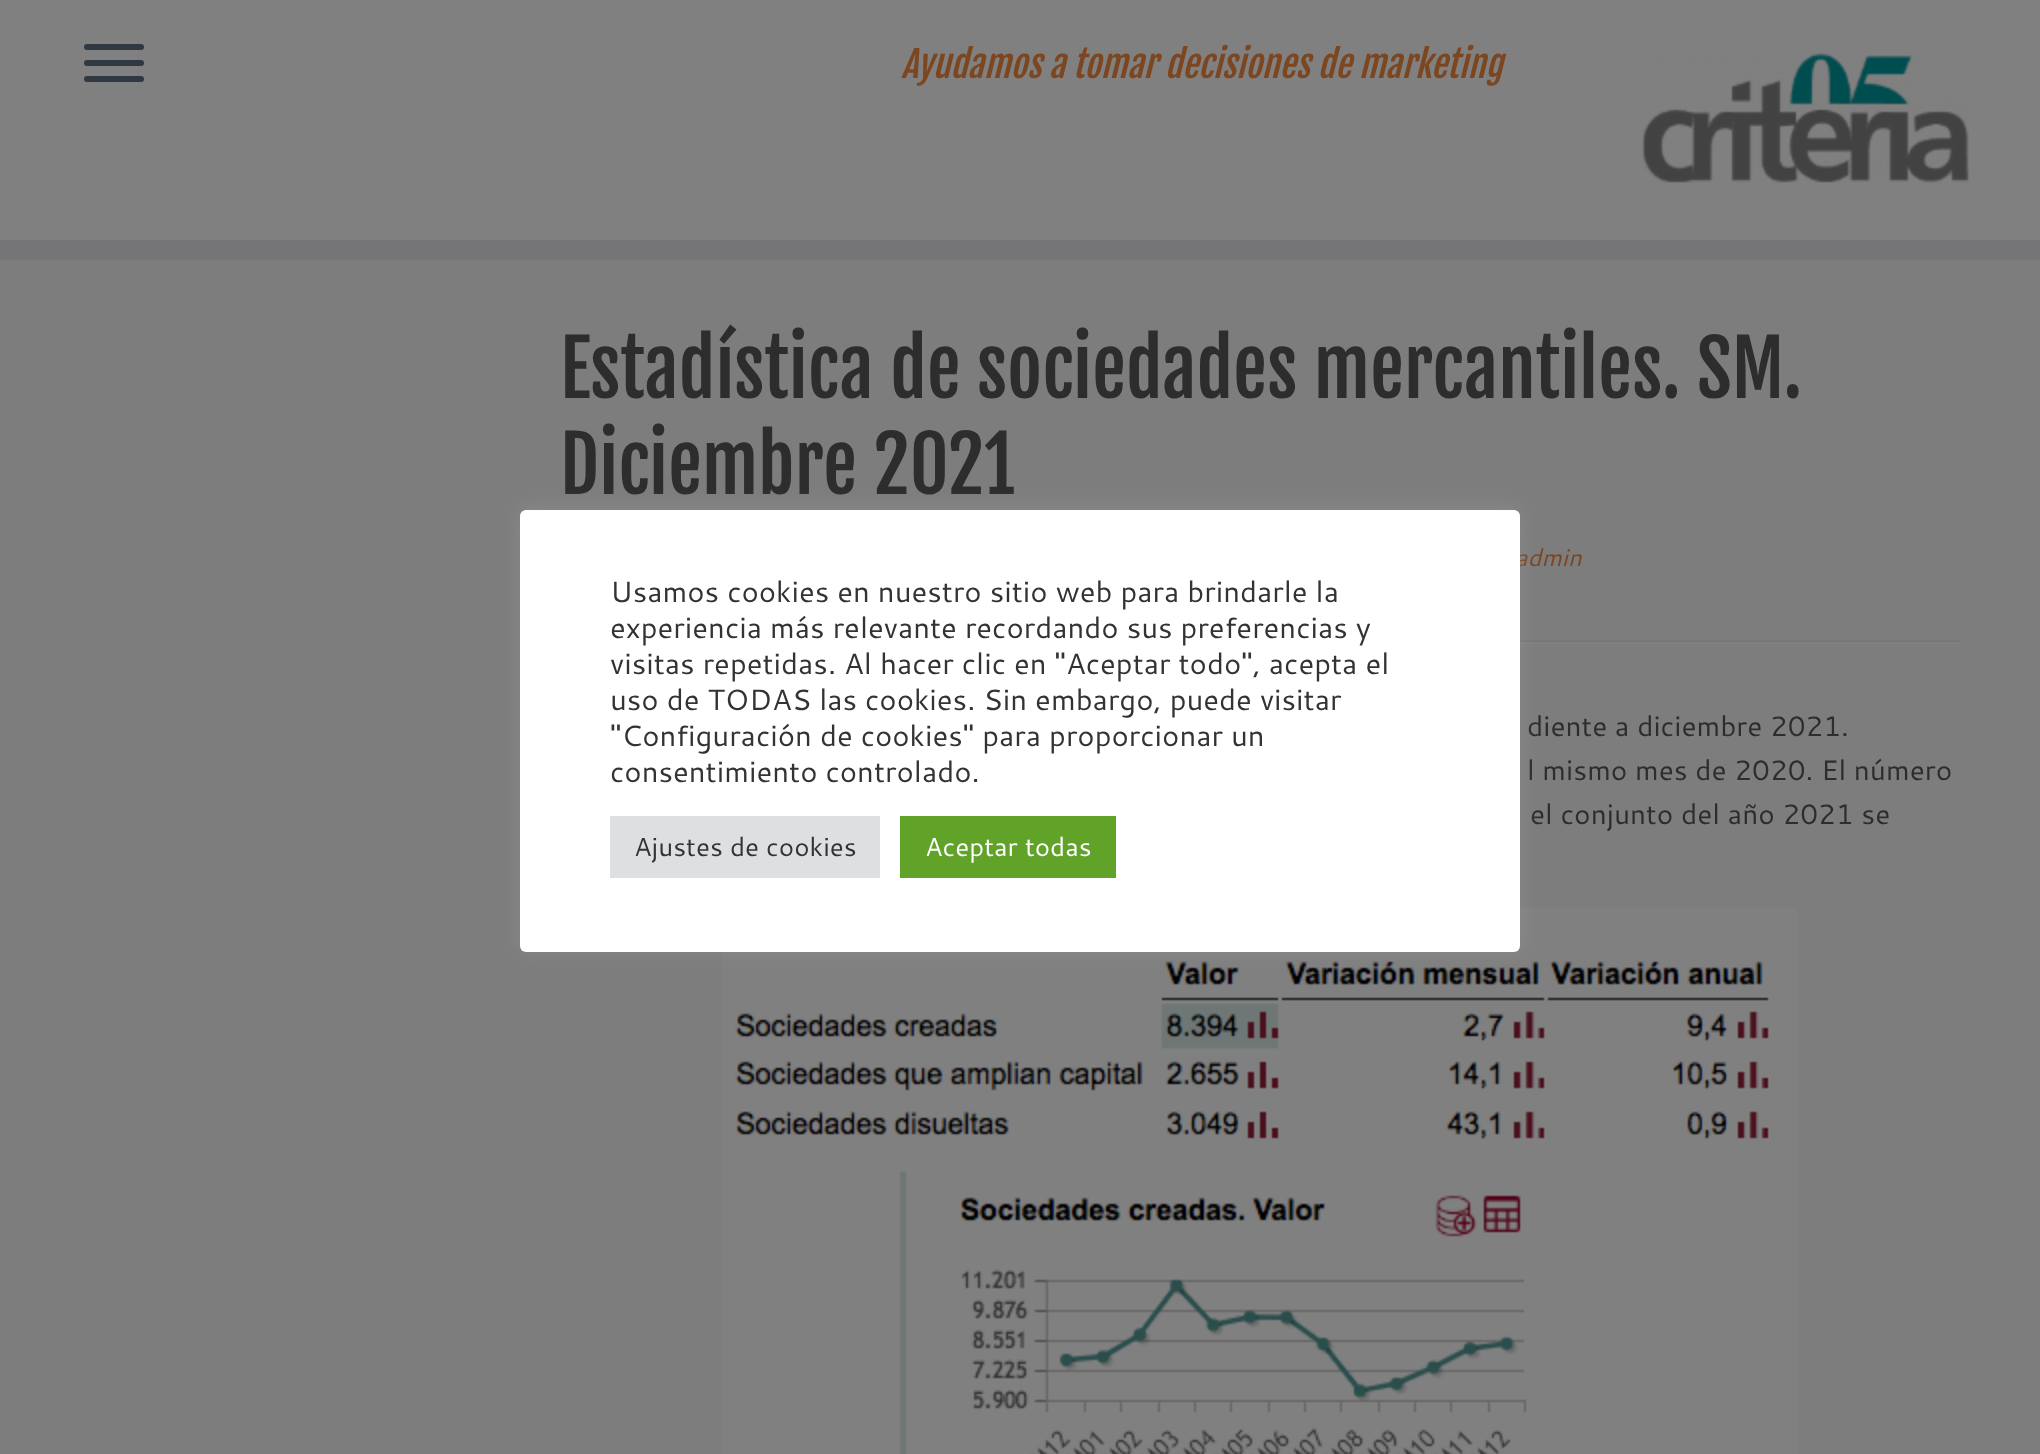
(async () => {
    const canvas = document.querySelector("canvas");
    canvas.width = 2040;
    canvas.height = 1454;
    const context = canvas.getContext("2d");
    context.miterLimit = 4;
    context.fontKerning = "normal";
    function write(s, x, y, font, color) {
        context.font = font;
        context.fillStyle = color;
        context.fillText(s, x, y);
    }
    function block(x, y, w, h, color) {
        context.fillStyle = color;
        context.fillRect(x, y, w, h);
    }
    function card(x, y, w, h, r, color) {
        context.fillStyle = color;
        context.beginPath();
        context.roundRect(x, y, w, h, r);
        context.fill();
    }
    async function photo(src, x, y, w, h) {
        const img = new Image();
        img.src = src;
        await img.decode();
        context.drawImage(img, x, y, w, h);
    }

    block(0, 0, 2040, 1454, "rgb(125, 125, 125)");
    block(0, 0, 2040, 240, "rgb(128, 128, 128)");
    block(0, 240, 2040, 20, "rgb(117, 117, 119)");
    card(84, 44, 60, 6, 3, "rgb(48, 56, 65)");
    card(84, 60, 60, 6, 3, "rgb(48, 56, 65)");
    card(84, 76, 60, 6, 3, "rgb(48, 56, 65)");
    write("Ayudamos a tomar decisiones de marketing", 901, 78, "italic 36px Fjalla One", "rgb(124, 70, 32)");
    await photo("media/1.png", 1641, 53, 329, 130);
    write("Estadística de sociedades mercantiles. SM.", 560, 398, "76px Fjalla One", "rgb(45, 45, 45)");
    write("Diciembre 2021", 560, 494, "76px Fjalla One", "rgb(45, 45, 45)");
    write("admin", 1515, 566, "italic 24px Cantarell", "rgb(124, 70, 32)");
    block(1520, 640, 440, 2, "rgb(119, 119, 119)");
    block(1520, 642, 440, 2, "rgb(128, 128, 128)");
    write("diente a diciembre 2021.", 1527, 736, "28px Cantarell", "rgb(45, 45, 45)");
    write("l mismo mes de 2020. El número", 1527, 780, "28px Cantarell", "rgb(45, 45, 45)");
    write("el conjunto del año 2021 se", 1530, 824, "28px Cantarell", "rgb(45, 45, 45)");
    await photo("media/2.png", 722, 908, 1076, 546);
    context.fillStyle = "rgba(172, 171, 171, 0.3)";
    context.filter = "blur(10px)";
    context.beginPath();
    context.roundRect(520, 508, 1000, 442, 6);
    context.fill();
    context.filter = "none";
    card(520, 510, 1000, 442, 6, "rgb(255, 255, 255)");
    write("Usamos cookies en nuestro sitio web para brindarle la", 610, 602, "29.3px Cantarell", "rgb(51, 51, 51)");
    write("experiencia más relevante recordando sus preferencias y", 610, 638, "29.3px Cantarell", "rgb(51, 51, 51)");
    write("visitas repetidas. Al hacer clic en \"Aceptar todo\", acepta el", 610, 674, "29.3px Cantarell", "rgb(51, 51, 51)");
    write("uso de TODAS las cookies. Sin embargo, puede visitar", 610, 710, "29.3px Cantarell", "rgb(51, 51, 51)");
    write("\"Configuración de cookies\" para proporcionar un", 610, 746, "29.3px Cantarell", "rgb(51, 51, 51)");
    write("consentimiento controlado.", 610, 782, "29.3px Cantarell", "rgb(51, 51, 51)");
    block(610, 816, 270, 62, "rgb(222, 223, 224)");
    write("Ajustes de cookies", 634, 856, "26px Cantarell", "rgb(51, 51, 51)");
    block(900, 816, 216, 62, "rgb(97, 162, 41)");
    write("Aceptar todas", 925, 856, "26px Cantarell", "rgb(255, 255, 255)");
})();
